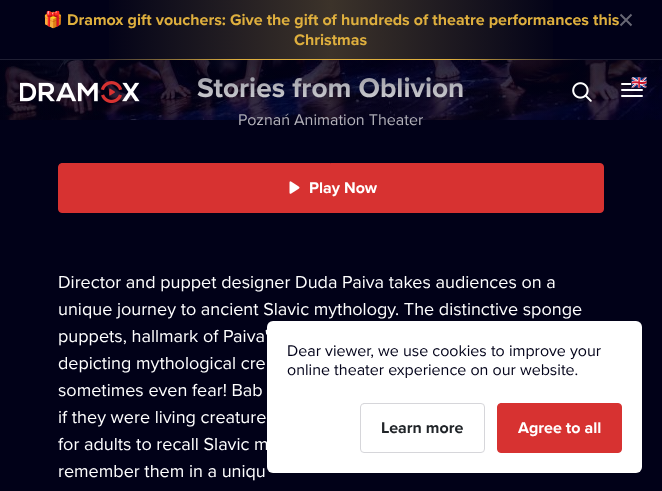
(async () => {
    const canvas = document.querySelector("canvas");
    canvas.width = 662;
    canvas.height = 491;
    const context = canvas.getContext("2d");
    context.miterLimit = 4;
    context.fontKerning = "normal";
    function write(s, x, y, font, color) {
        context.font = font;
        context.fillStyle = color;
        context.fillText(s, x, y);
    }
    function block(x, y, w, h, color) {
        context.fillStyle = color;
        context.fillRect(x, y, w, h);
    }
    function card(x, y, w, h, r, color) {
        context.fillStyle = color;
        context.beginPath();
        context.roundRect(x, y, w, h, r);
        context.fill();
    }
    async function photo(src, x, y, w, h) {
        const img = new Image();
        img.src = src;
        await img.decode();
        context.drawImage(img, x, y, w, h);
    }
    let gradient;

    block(0, 0, 662, 491, "rgb(1, 1, 24)");
    await photo("media/3.png", 0, 60, 662, 60);
    gradient = context.createLinearGradient(331, -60, 331, 120);
    gradient.addColorStop(0, "rgba(1, 1, 24, 0)");
    gradient.addColorStop(1, "rgba(1, 1, 24, 0.7)");
    context.fillStyle = gradient;
    context.fillRect(0, 60, 662, 60);
    write("Stories from Oblivion", 197, 97, "bold 28px Proxima Nova", "rgb(255, 255, 255)");
    write("Poznań Animation Theater", 238, 125, "16px Proxima Nova", "rgb(181, 180, 188)");
    gradient = context.createLinearGradient(331, 0, 331, 124);
    gradient.addColorStop(0, "rgb(1, 1, 24)");
    gradient.addColorStop(1, "rgba(1, 1, 24, 0)");
    context.fillStyle = gradient;
    context.fillRect(0, 60, 662, 61);
    gradient = context.createLinearGradient(662, 30, 0, 30);
    gradient.addColorStop(0.15, "rgb(1, 1, 23)");
    gradient.addColorStop(0.5, "rgb(60, 51, 42)");
    gradient.addColorStop(0.85, "rgb(1, 1, 23)");
    context.fillStyle = gradient;
    context.fillRect(109, 0, 444, 59);
    write("🎁", 43, 25, "bold 16px Noto Color Emoji", "rgb(222, 175, 62)");
    write("Dramox gift vouchers: Give the gift of hundreds of theatre performances this", 67, 25, "bold 16px Proxima Nova", "rgb(222, 175, 62)");
    write("Christmas", 294, 45, "bold 16px Proxima Nova", "rgb(222, 175, 62)");
    context.beginPath();
    context.moveTo(631.5, 14.5);
    context.lineTo(620.5, 25.5);
    context.moveTo(620.5, 14.5);
    context.lineTo(631.5, 25.5);
    context.closePath();
    context.strokeStyle = "rgb(103, 103, 116)";
    context.lineWidth = 2;
    context.stroke();
    gradient = context.createLinearGradient(662, 59, 0, 60);
    gradient.addColorStop(0.12, "rgb(31, 31, 51)");
    gradient.addColorStop(0.32, "rgb(222, 175, 62)");
    gradient.addColorStop(0.64, "rgb(222, 175, 62)");
    gradient.addColorStop(0.88, "rgb(31, 31, 51)");
    context.fillStyle = gradient;
    context.fillRect(0, 59, 662, 1);
    await photo("media/1.png", 20, 81, 120, 23);
    await photo("media/2.png", 572, 82, 20, 20);
    context.beginPath();
    context.moveTo(622, 90);
    context.lineTo(642, 90);
    context.moveTo(622, 84);
    context.lineTo(642, 84);
    context.moveTo(622, 96);
    context.lineTo(642, 96);
    context.strokeStyle = "rgb(255, 255, 255)";
    context.lineCap = "round";
    context.stroke();
    card(631, 77, 17, 11, 3, "rgb(1, 1, 24)");
    write("🇬🇧", 631, 87, "13px Noto Color Emoji", "rgb(255, 255, 255)");
    context.fillStyle = "rgb(215, 50, 49)";
    context.beginPath();
    context.roundRect(58.5, 163.5, 545, 49, 3.5);
    context.fill();
    context.strokeStyle = "rgb(215, 50, 49)";
    context.lineWidth = 1;
    context.stroke();
    await photo("media/4.png", 289, 181, 11, 13);
    write("Play Now", 309, 193, "bold 16px Proxima Nova", "rgb(255, 255, 255)");
    write("Director and puppet designer Duda Paiva takes audiences on a", 58, 288, "18px Proxima Nova", "rgb(255, 255, 255)");
    write("unique journey to ancient Slavic mythology. The distinctive sponge", 58, 315, "18px Proxima Nova", "rgb(255, 255, 255)");
    write("puppets, hallmark of Paiva'", 58, 342, "18px Proxima Nova", "rgb(255, 255, 255)");
    write("depicting mythological cre", 58, 369, "18px Proxima Nova", "rgb(255, 255, 255)");
    write("sometimes even fear! Bab", 58, 396, "18px Proxima Nova", "rgb(255, 255, 255)");
    write("if they were living creature", 58, 423, "18px Proxima Nova", "rgb(255, 255, 255)");
    write("for adults to recall Slavic m", 58, 450, "18px Proxima Nova", "rgb(255, 255, 255)");
    write("remember them in a uniqu", 58, 477, "18px Proxima Nova", "rgb(255, 255, 255)");
    card(267, 321, 375, 152, 6, "rgb(255, 255, 255)");
    write("Dear viewer, we use cookies to improve your", 287, 356, "16px Proxima Nova", "rgb(1, 1, 24)");
    write("online theater experience on our website.", 287, 375, "16px Proxima Nova", "rgb(1, 1, 24)");
    context.beginPath();
    context.roundRect(360.5, 403.5, 124, 49, 3.5);
    context.strokeStyle = "rgb(214, 214, 218)";
    context.stroke();
    write("Learn more", 381, 433, "bold 16px Proxima Nova", "rgb(33, 37, 41)");
    context.fillStyle = "rgb(215, 50, 49)";
    context.beginPath();
    context.roundRect(497.5, 403.5, 124, 49, 3.5);
    context.fill();
    context.strokeStyle = "rgb(215, 50, 49)";
    context.stroke();
    write("Agree to all", 518, 433, "bold 16px Proxima Nova", "rgb(255, 255, 255)");
})();
